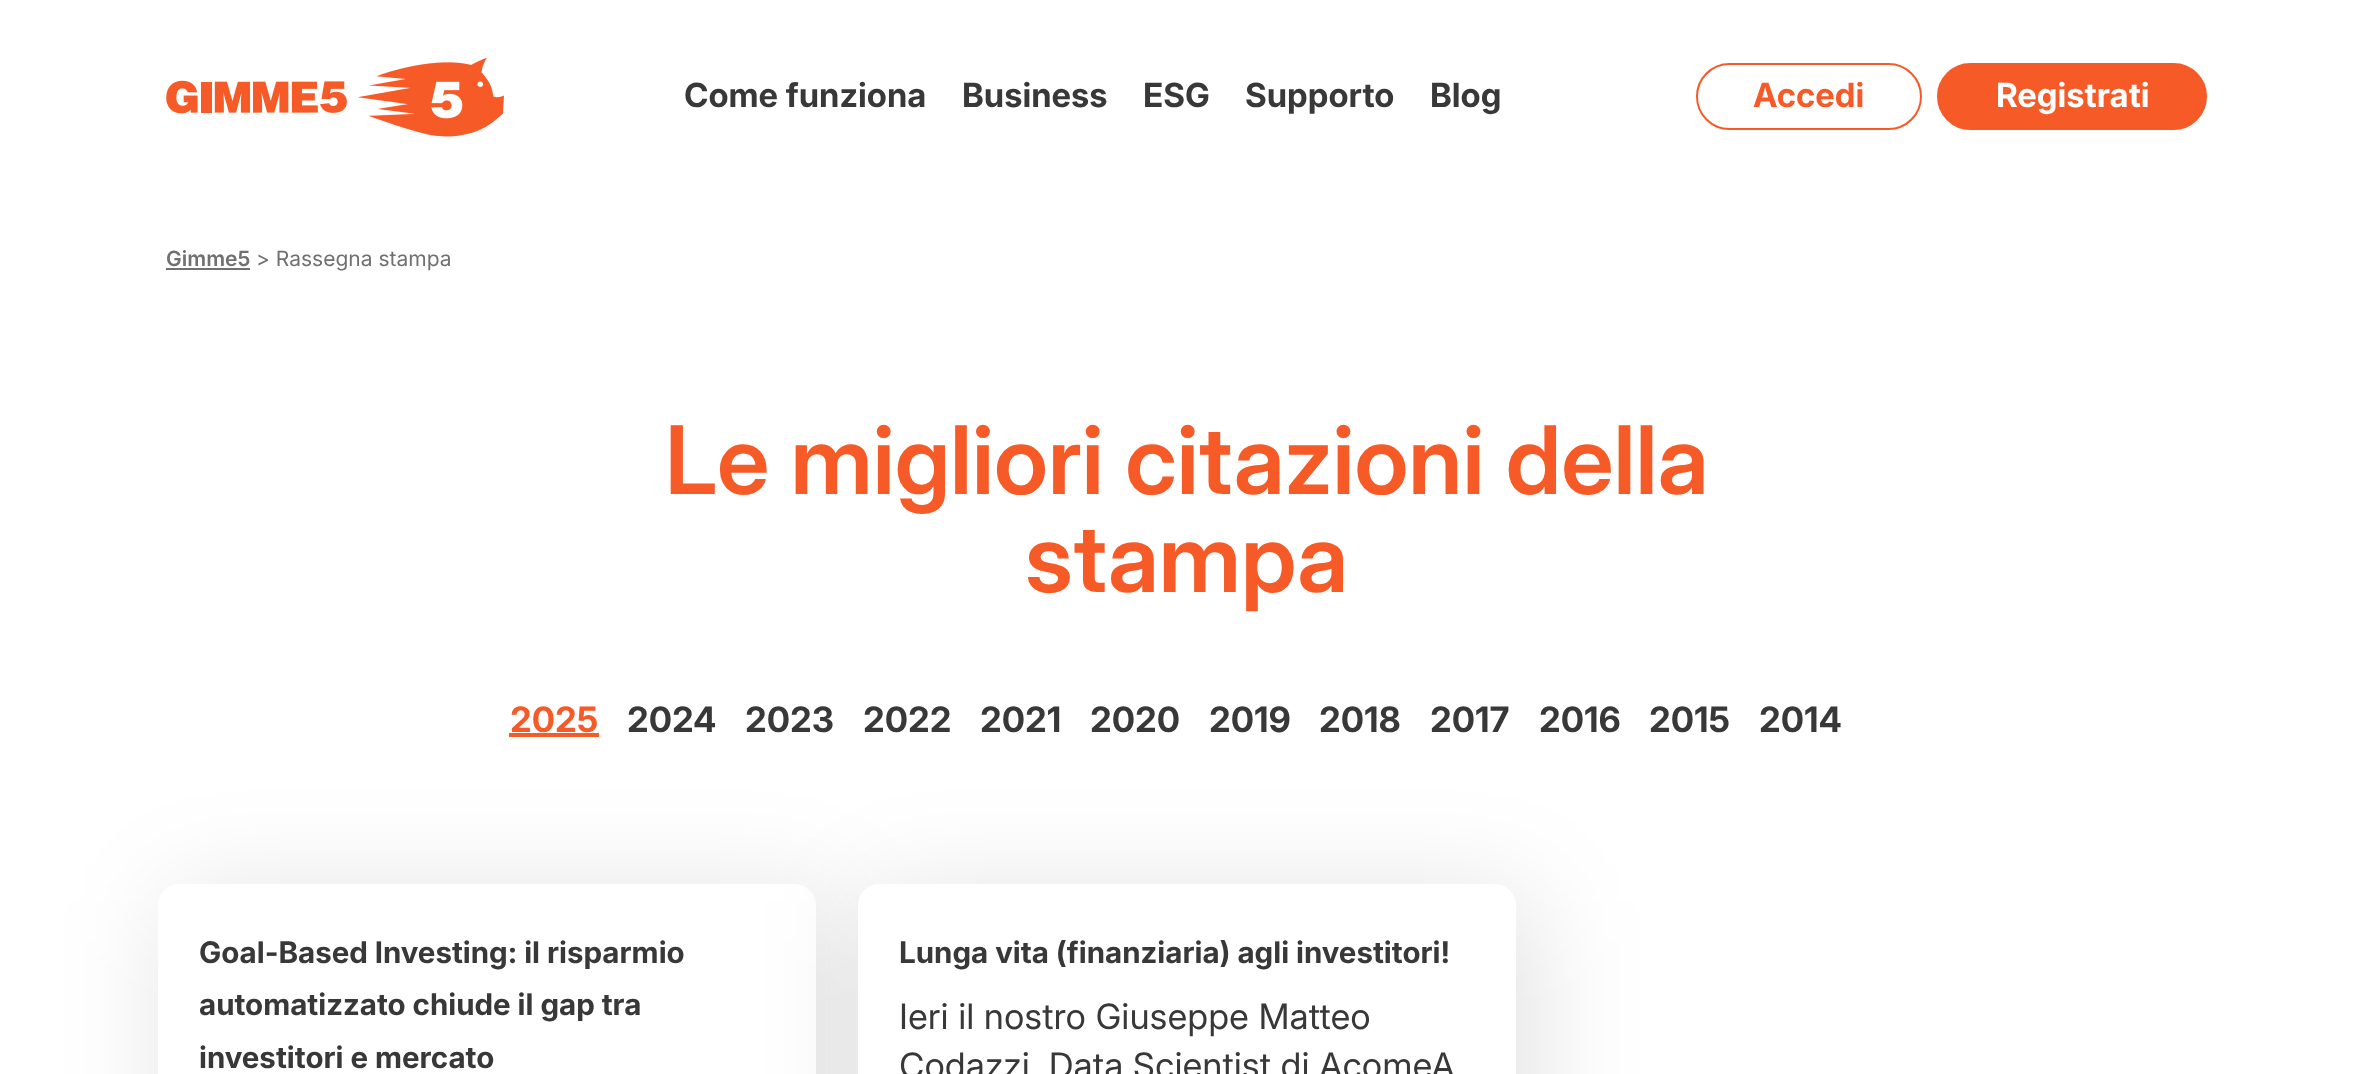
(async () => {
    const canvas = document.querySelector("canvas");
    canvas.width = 2373;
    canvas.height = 1074;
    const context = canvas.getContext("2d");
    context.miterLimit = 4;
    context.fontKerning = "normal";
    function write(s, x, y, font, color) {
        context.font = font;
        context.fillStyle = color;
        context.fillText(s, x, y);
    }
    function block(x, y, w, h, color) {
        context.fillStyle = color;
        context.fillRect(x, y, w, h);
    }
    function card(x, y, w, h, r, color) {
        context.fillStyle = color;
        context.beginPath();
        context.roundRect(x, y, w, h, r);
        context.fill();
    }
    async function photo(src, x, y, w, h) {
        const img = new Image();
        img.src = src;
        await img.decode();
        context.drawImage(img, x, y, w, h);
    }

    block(0, 0, 2373, 1074, "rgb(255, 255, 255)");
    await photo("media/1.png", 166, 58, 338, 79);
    write("Come funziona", 684, 107, "bold 33.25px 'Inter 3'", "rgb(56, 56, 56)");
    write("Business", 962, 107, "bold 33.25px 'Inter 3'", "rgb(56, 56, 56)");
    write("ESG", 1143, 107, "bold 33.25px 'Inter 3'", "rgb(56, 56, 56)");
    write("Supporto", 1245, 107, "bold 33.25px 'Inter 3'", "rgb(56, 56, 56)");
    write("Blog", 1430, 107, "bold 33.25px 'Inter 3'", "rgb(56, 56, 56)");
    context.beginPath();
    context.roundRect(1697, 64, 224, 65, 32.5);
    context.strokeStyle = "rgb(245, 90, 39)";
    context.lineWidth = 2;
    context.stroke();
    write("Accedi", 1753, 107, "bold 33.25px 'Inter 3'", "rgb(245, 90, 39)");
    context.beginPath();
    context.roundRect(1938, 64, 268, 65, 32.5);
    context.fill();
    context.stroke();
    write("Registrati", 1996, 107, "bold 33.25px 'Inter 3'", "rgb(255, 255, 255)");
    write("Gimme5", 166, 266, "600 21px Inter", "rgb(112, 112, 112)");
    block(166, 268, 84, 2, "rgb(112, 112, 112)");
    write("> Rassegna stampa", 256, 266, "21px Inter", "rgb(112, 112, 112)");
    write("Le migliori citazioni della", 665, 494, "600 94.5px 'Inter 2'", "rgb(245, 90, 39)");
    write("stampa", 1025, 592, "600 94.5px 'Inter 2'", "rgb(245, 90, 39)");
    write("2025", 510, 732, "bold 35px Inter", "rgb(245, 90, 39)");
    block(509, 733, 90, 4, "rgb(245, 90, 39)");
    write("2024", 627, 732, "bold 35px Inter", "rgb(56, 56, 56)");
    write("2023", 745, 732, "bold 35px Inter", "rgb(56, 56, 56)");
    write("2022", 863, 732, "bold 35px Inter", "rgb(56, 56, 56)");
    write("2021", 980, 732, "bold 35px Inter", "rgb(56, 56, 56)");
    write("2020", 1090, 732, "bold 35px Inter", "rgb(56, 56, 56)");
    write("2019", 1209, 732, "bold 35px Inter", "rgb(56, 56, 56)");
    write("2018", 1319, 732, "bold 35px Inter", "rgb(56, 56, 56)");
    write("2017", 1430, 732, "bold 35px Inter", "rgb(56, 56, 56)");
    write("2016", 1539, 732, "bold 35px Inter", "rgb(56, 56, 56)");
    write("2015", 1649, 732, "bold 35px Inter", "rgb(56, 56, 56)");
    write("2014", 1759, 732, "bold 35px Inter", "rgb(56, 56, 56)");
    context.fillStyle = "rgba(0, 0, 0, 0.12)";
    context.filter = "blur(56px)";
    context.beginPath();
    context.roundRect(172, 898, 658, 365, 21);
    context.fill();
    context.filter = "none";
    card(158, 884, 658, 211, 21, "rgb(255, 255, 255)");
    write("Goal-Based Investing: il risparmio", 199, 963, "bold 29.75px 'Inter 2'", "rgb(56, 56, 56)");
    write("automatizzato chiude il gap tra", 199, 1015, "bold 29.75px 'Inter 2'", "rgb(56, 56, 56)");
    write("investitori e mercato", 199, 1068, "bold 29.75px 'Inter 2'", "rgb(56, 56, 56)");
    context.fillStyle = "rgba(0, 0, 0, 0.12)";
    context.filter = "blur(56px)";
    context.beginPath();
    context.roundRect(872, 898, 658, 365, 21);
    context.fill();
    context.filter = "none";
    card(858, 884, 658, 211, 21, "rgb(255, 255, 255)");
    write("Lunga vita (finanziaria) agli investitori!", 899, 963, "bold 29.75px 'Inter 2'", "rgb(56, 56, 56)");
    write("Ieri il nostro Giuseppe Matteo", 899, 1029, "35px 'Inter 2'", "rgb(56, 56, 56)");
    write("Codazzi, Data Scientist di AcomeA", 899, 1078, "35px 'Inter 2'", "rgb(56, 56, 56)");
})();
